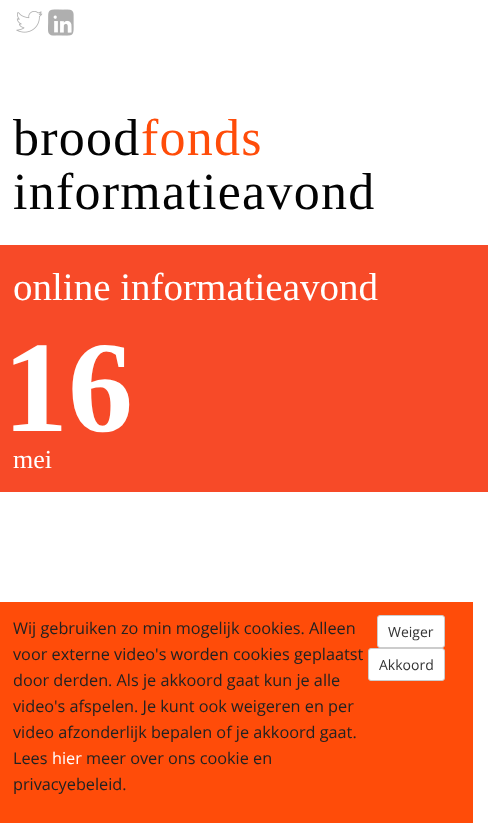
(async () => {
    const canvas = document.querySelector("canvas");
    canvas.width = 488;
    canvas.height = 823;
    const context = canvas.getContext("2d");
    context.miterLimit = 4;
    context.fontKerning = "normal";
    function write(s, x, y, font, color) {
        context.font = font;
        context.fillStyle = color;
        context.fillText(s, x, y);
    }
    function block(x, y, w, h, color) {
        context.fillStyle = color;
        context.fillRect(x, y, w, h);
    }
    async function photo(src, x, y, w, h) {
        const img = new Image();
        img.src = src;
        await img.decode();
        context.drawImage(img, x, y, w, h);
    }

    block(0, 0, 488, 823, "rgb(255, 255, 255)");
    await photo("media/1.png", 16, 11, 27, 22);
    await photo("media/2.png", 48, 9, 26, 27);
    context.letterSpacing = "1.25px";
    write("brood", 13, 155, "52px Liberation Serif", "rgb(3, 3, 3)");
    write("fonds", 141, 155, "52px Liberation Serif", "rgb(255, 76, 9)");
    write("informatieavond", 13, 209, "52px Liberation Serif", "rgb(3, 3, 3)");
    block(0, 245, 488, 247, "rgb(247, 74, 40)");
    context.letterSpacing = "0px";
    write("online informatieavond", 13, 300, "39px Liberation Serif", "rgb(255, 255, 255)");
    write("16", 3, 431, "bold 130px Liberation Serif", "rgb(255, 255, 255)");
    write("mei", 13, 468, "26px Liberation Serif", "rgb(255, 255, 255)");
    block(0, 602, 473, 221, "rgb(255, 76, 9)");
    write("Wij gebruiken zo min mogelijk cookies. Alleen", 13, 634, "16.25px Open Sans", "rgb(34, 34, 34)");
    write("voor externe video's worden cookies geplaatst", 13, 660, "16.25px Open Sans", "rgb(34, 34, 34)");
    write("door derden. Als je akkoord gaat kun je alle", 13, 686, "16.25px Open Sans", "rgb(34, 34, 34)");
    write("video's afspelen. Je kunt ook weigeren en per", 13, 712, "16.25px Open Sans", "rgb(34, 34, 34)");
    write("video afzonderlijk bepalen of je akkoord gaat.", 13, 738, "16.25px Open Sans", "rgb(34, 34, 34)");
    write("Lees", 13, 764, "16.25px Open Sans", "rgb(34, 34, 34)");
    write("hier", 52, 764, "16.25px Open Sans", "rgb(255, 255, 255)");
    write("meer over ons cookie en", 86, 764, "16.25px Open Sans", "rgb(34, 34, 34)");
    write("privacyebeleid.", 13, 790, "16.25px Open Sans", "rgb(34, 34, 34)");
    context.fillStyle = "rgb(255, 255, 255)";
    context.beginPath();
    context.roundRect(377.5, 615.5, 67, 32, 2.5);
    context.fill();
    context.strokeStyle = "rgb(204, 204, 204)";
    context.stroke();
    write("Weiger", 388, 637, "14px Open Sans", "rgb(51, 51, 51)");
    context.fillStyle = "rgb(255, 255, 255)";
    context.beginPath();
    context.roundRect(368.5, 648.5, 76, 32, 2.5);
    context.fill();
    context.stroke();
    write("Akkoord", 379, 670, "14px Open Sans", "rgb(51, 51, 51)");
})();
